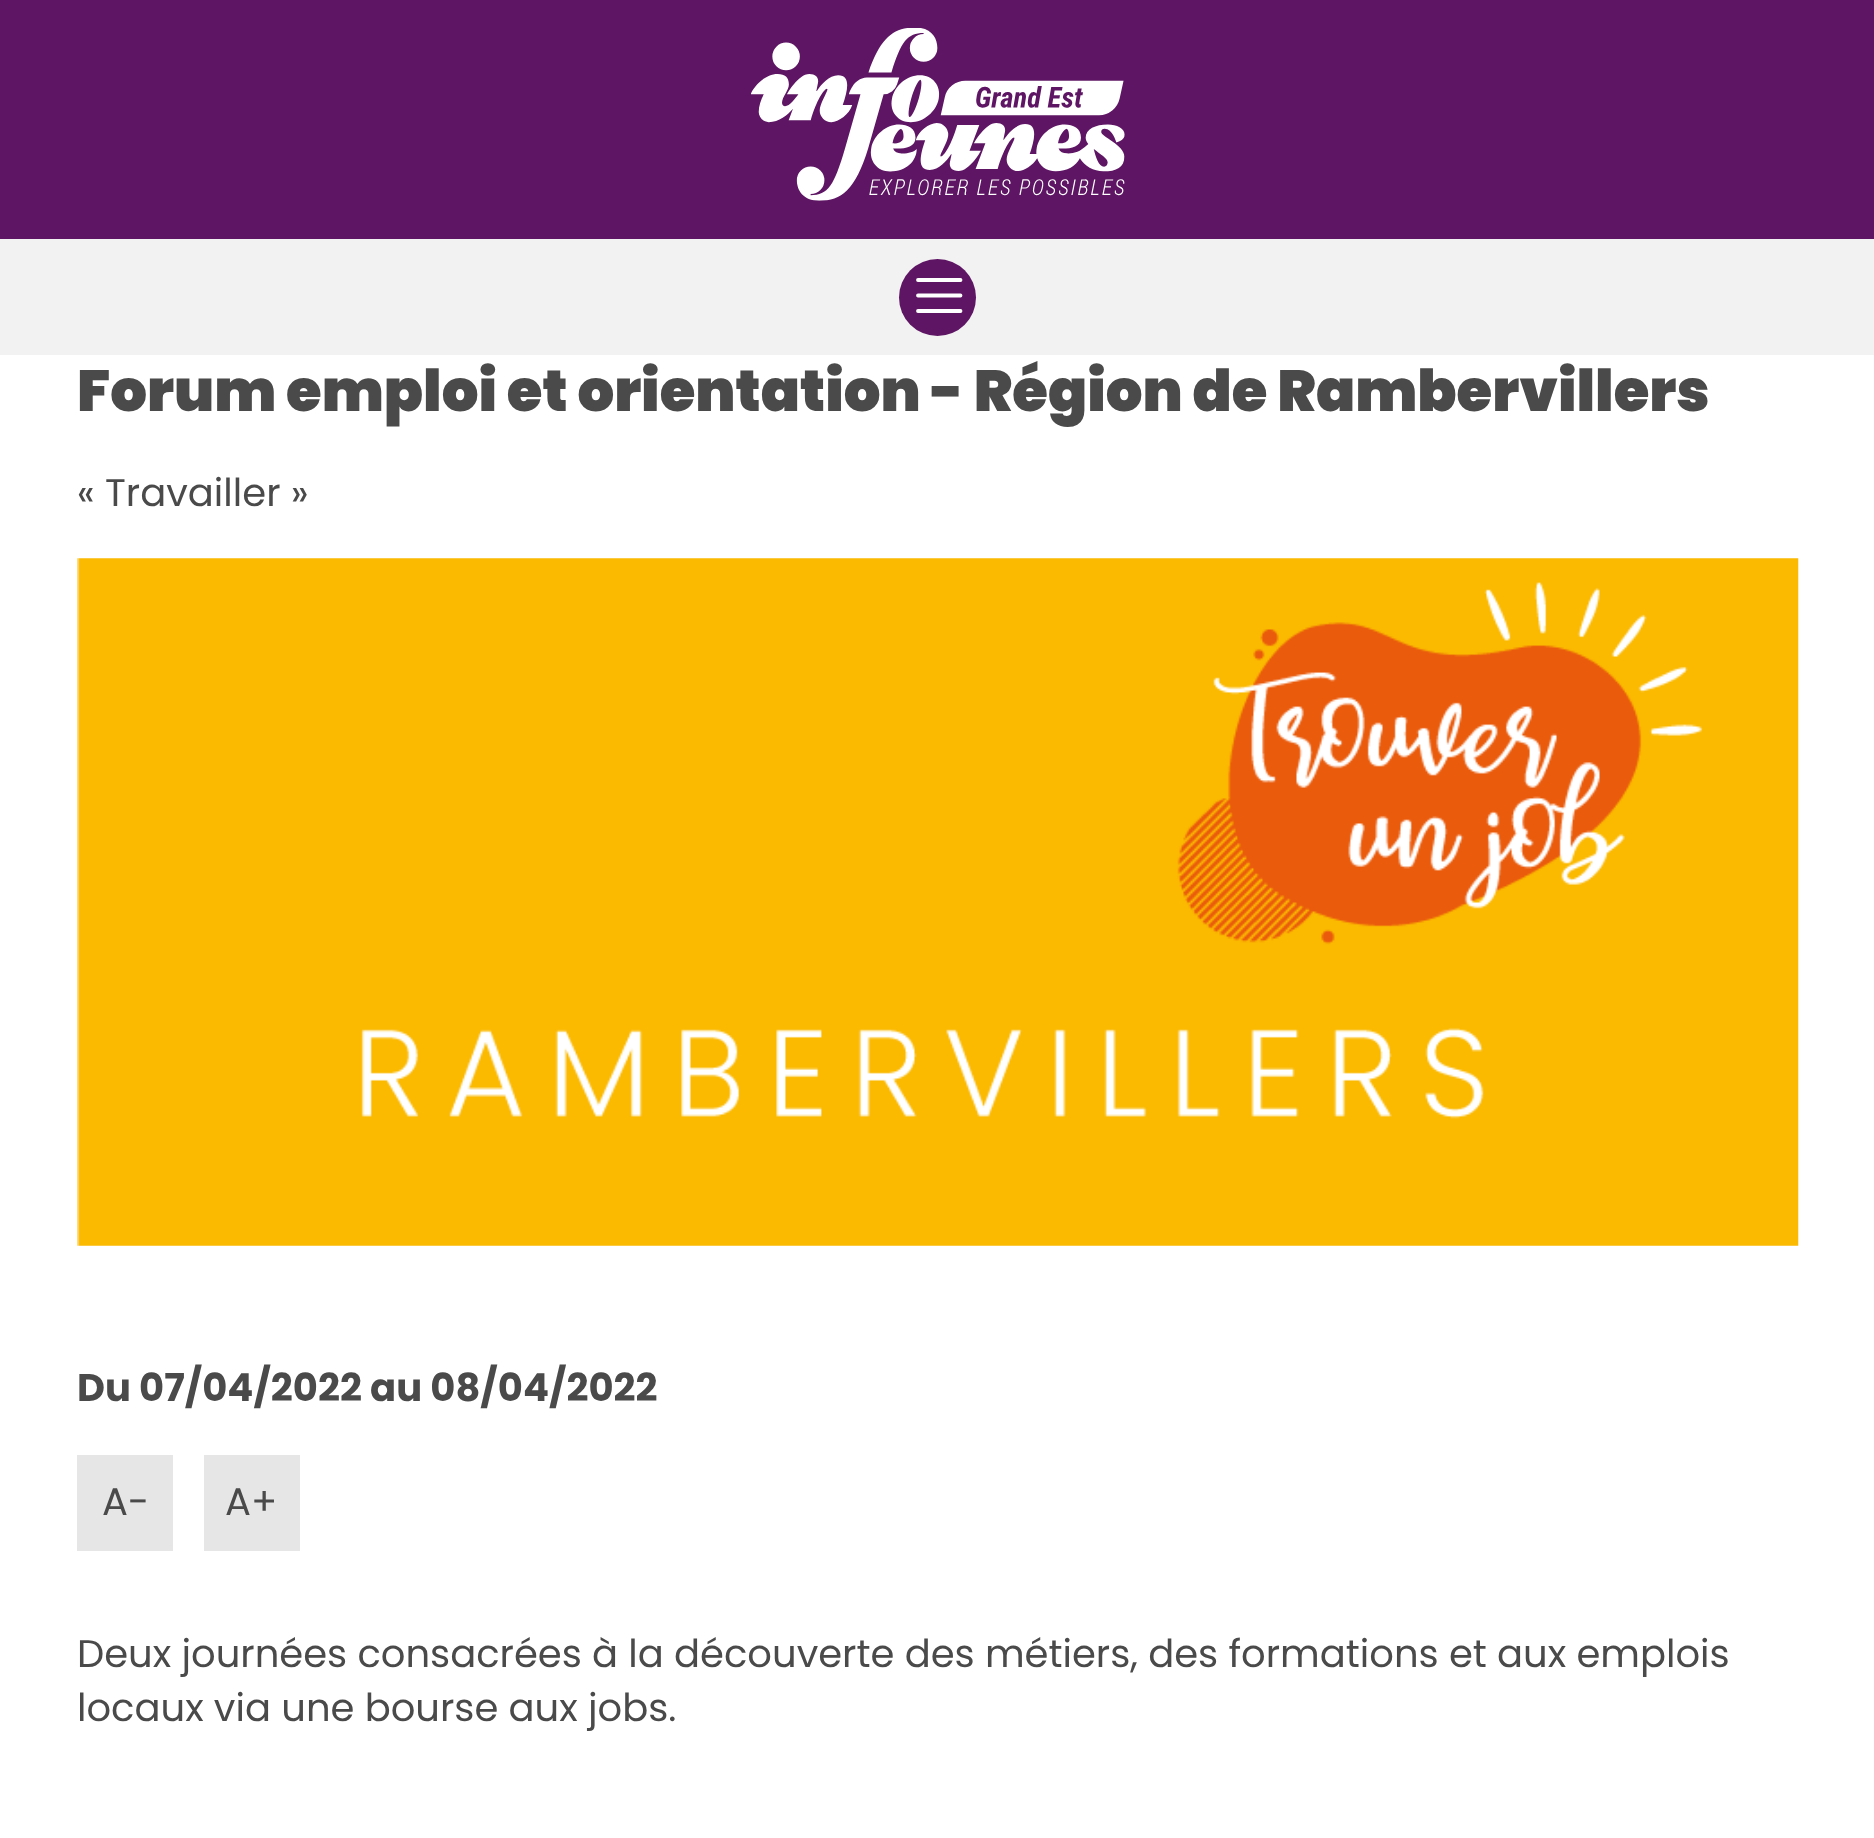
(async () => {
    const canvas = document.querySelector("canvas");
    canvas.width = 1874;
    canvas.height = 1838;
    const context = canvas.getContext("2d");
    context.miterLimit = 4;
    context.fontKerning = "normal";
    function write(s, x, y, font, color) {
        context.font = font;
        context.fillStyle = color;
        context.fillText(s, x, y);
    }
    function block(x, y, w, h, color) {
        context.fillStyle = color;
        context.fillRect(x, y, w, h);
    }
    async function photo(src, x, y, w, h) {
        const img = new Image();
        img.src = src;
        await img.decode();
        context.drawImage(img, x, y, w, h);
    }

    block(0, 0, 1874, 1838, "rgb(255, 255, 255)");
    block(0, 0, 1874, 239, "rgb(94, 22, 100)");
    await photo("media/1.png", 751, 28, 374, 173);
    block(0, 239, 1874, 116, "rgb(242, 242, 242)");
    context.fillStyle = "rgb(94, 22, 100)";
    context.beginPath();
    context.arc(937.5, 297.5, 38.5, 0, Math.PI * 2);
    context.fill();
    context.beginPath();
    context.moveTo(918, 280);
    context.lineTo(960.5, 280);
    context.moveTo(918, 295.5);
    context.lineTo(960.5, 295.5);
    context.moveTo(918, 311);
    context.lineTo(960.5, 311);
    context.strokeStyle = "rgb(255, 255, 255)";
    context.lineWidth = 3.8;
    context.lineCap = "round";
    context.stroke();
    write("Forum emploi et orientation - Région de Rambervillers", 77, 411, "900 57.75px Poppins", "rgb(74, 74, 74)");
    write("« Travailler »", 77, 506, "38.5px Poppins", "rgb(74, 74, 74)");
    await photo("media/2.png", 77, 558, 1722, 688);
    write("Du 07/04/2022 au 08/04/2022", 77, 1401, "bold 38.5px Poppins", "rgb(74, 74, 74)");
    block(77, 1455, 96, 96, "rgb(230, 230, 230)");
    write("A-", 102, 1515, "38.5px Poppins", "rgb(74, 74, 74)");
    block(204, 1455, 96, 96, "rgb(230, 230, 230)");
    write("A+", 225, 1515, "38.5px Poppins", "rgb(74, 74, 74)");
    write("Deux journées consacrées à la découverte des métiers, des formations et aux emplois", 77, 1667, "38.5px Poppins", "rgb(74, 74, 74)");
    write("locaux via une bourse aux jobs.", 77, 1721, "38.5px Poppins", "rgb(74, 74, 74)");
})();
